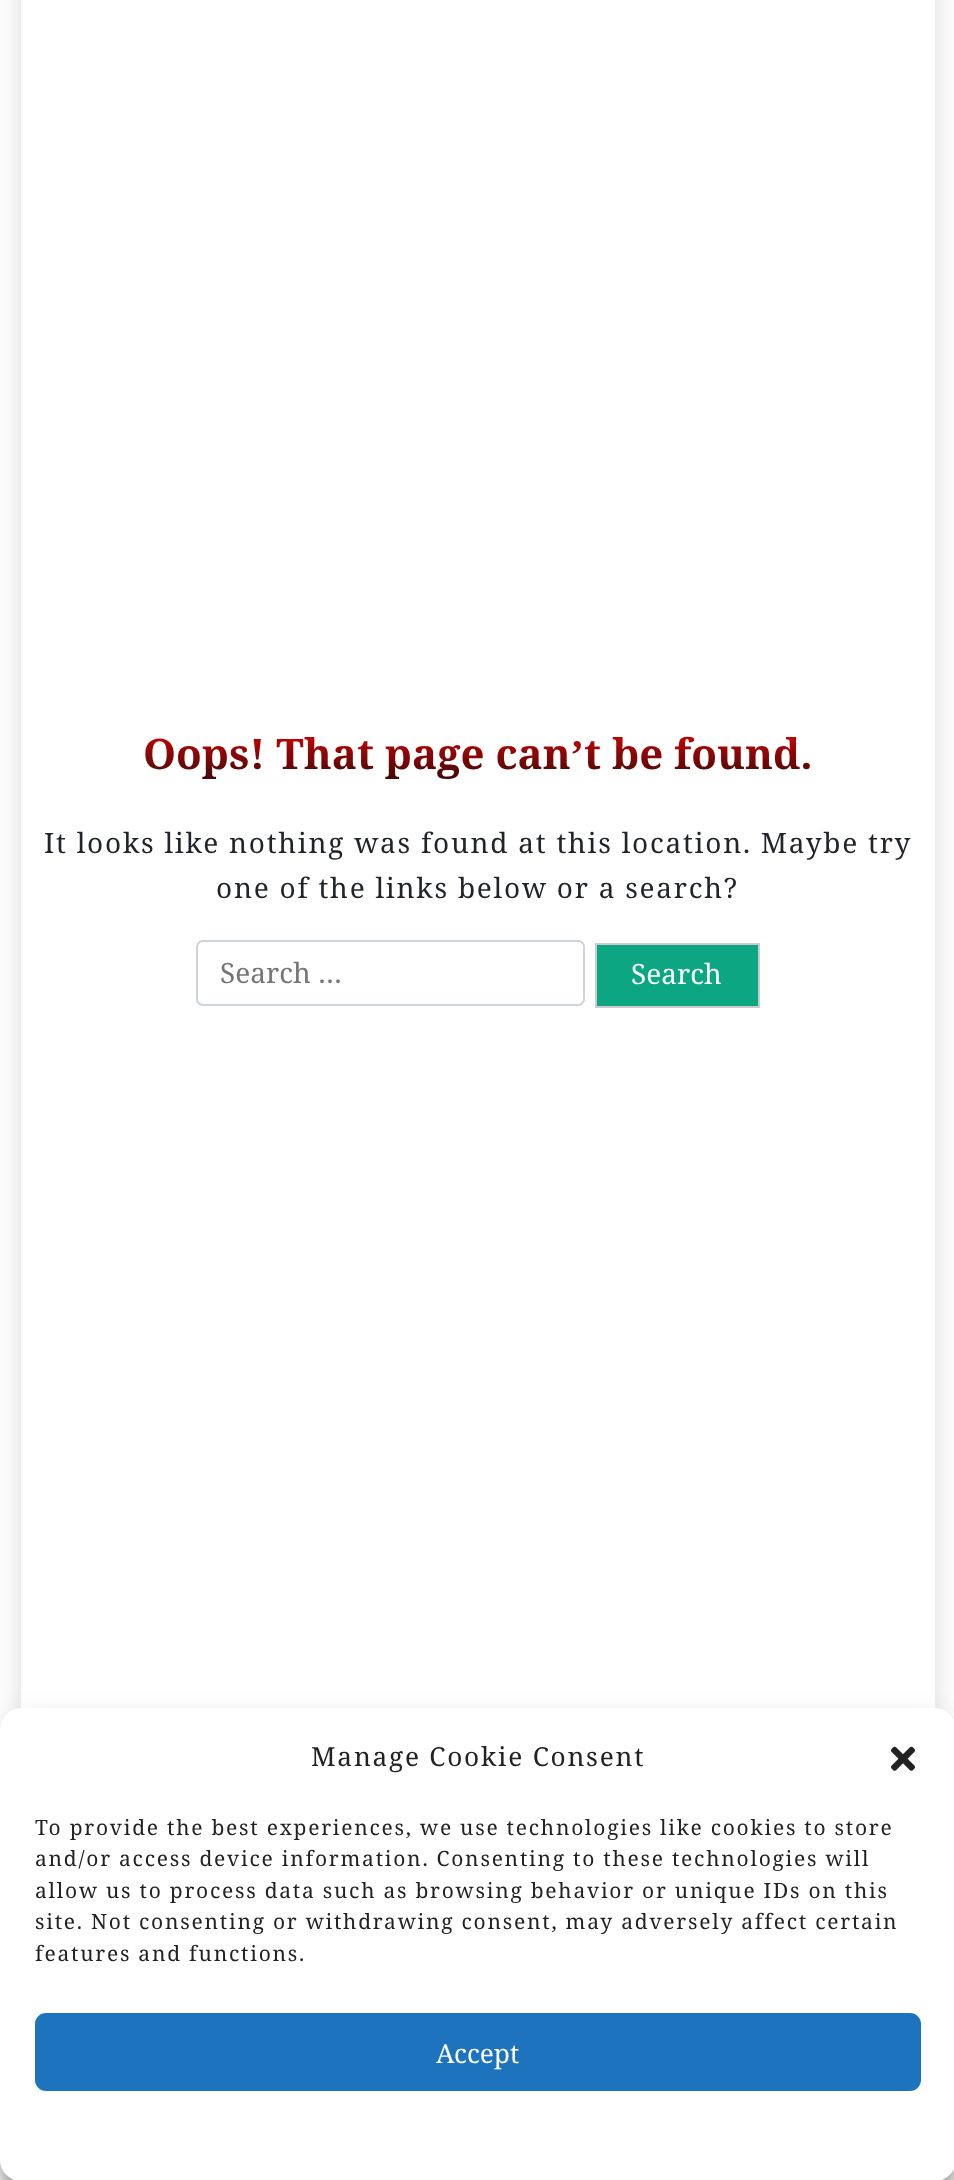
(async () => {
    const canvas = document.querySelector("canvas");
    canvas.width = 954;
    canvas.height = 2180;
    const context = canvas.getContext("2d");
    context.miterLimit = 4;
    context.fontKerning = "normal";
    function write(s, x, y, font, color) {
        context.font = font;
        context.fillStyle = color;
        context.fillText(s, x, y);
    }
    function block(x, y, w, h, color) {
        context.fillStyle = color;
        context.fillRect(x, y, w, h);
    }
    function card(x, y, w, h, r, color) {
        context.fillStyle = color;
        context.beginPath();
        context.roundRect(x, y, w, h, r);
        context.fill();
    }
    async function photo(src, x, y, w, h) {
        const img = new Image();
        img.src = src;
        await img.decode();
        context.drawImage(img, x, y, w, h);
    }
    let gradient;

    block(0, 0, 954, 2180, "rgb(255, 255, 255)");
    context.save();
    context.beginPath();
    context.moveTo(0, 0);
    context.lineTo(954, 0);
    context.lineTo(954, 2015);
    context.lineTo(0, 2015);
    context.closePath();
    context.moveTo(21, -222);
    context.lineTo(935, -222);
    context.lineTo(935, 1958);
    context.lineTo(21, 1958);
    context.closePath();
    context.clip("evenodd");
    context.fillStyle = "rgba(0, 0, 0, 0.15)";
    context.filter = "blur(14px)";
    context.beginPath();
    context.rect(21, -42, 914, 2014);
    context.fill();
    context.filter = "none";
    context.restore();
    context.font = "bold 42px Koh Santepheap";
    gradient = context.createLinearGradient(478, 729, 478, 779);
    gradient.addColorStop(0, "rgb(214, 3, 3)");
    gradient.addColorStop(1, "rgb(65, 9, 9)");
    context.fillStyle = gradient;
    context.fillText("Oops! That page can", 143, 769);
    context.font = "bold 42px Liberation Serif";
    context.fillText("’", 570, 769);
    context.font = "bold 42px Koh Santepheap";
    context.fillText("t be found.", 584, 769);
    context.letterSpacing = "1.75px";
    write("It looks like nothing was found at this location. Maybe try", 44, 853, "28px Noto Serif", "rgb(33, 37, 41)");
    write("one of the links below or a search?", 216, 898, "28px Noto Serif", "rgb(33, 37, 41)");
    context.beginPath();
    context.roundRect(197, 941, 387, 64, 6);
    context.strokeStyle = "rgb(206, 212, 218)";
    context.lineWidth = 2;
    context.stroke();
    context.letterSpacing = "0px";
    write("Search …", 220, 983, "28px Noto Serif", "rgb(117, 117, 117)");
    context.fillStyle = "rgb(12, 166, 131)";
    context.beginPath();
    context.rect(596, 944, 163, 63);
    context.fill();
    context.strokeStyle = "rgb(204, 204, 204)";
    context.stroke();
    write("Search", 631, 984, "28px Noto Serif", "rgb(255, 255, 255)");
    context.fillStyle = "rgba(0, 0, 0, 0.23)";
    context.filter = "blur(5px)";
    context.beginPath();
    context.roundRect(0, 1719, 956, 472, 21);
    context.fill();
    context.filter = "none";
    context.fillStyle = "rgba(0, 0, 0, 0.19)";
    context.filter = "blur(17.5px)";
    context.beginPath();
    context.roundRect(0, 1726, 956, 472, 21);
    context.fill();
    context.filter = "none";
    card(0, 1708, 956, 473, 21, "rgb(255, 255, 255)");
    context.letterSpacing = "1.75px";
    write("Manage Cookie Consent", 311, 1766, "26.25px Noto Serif", "rgb(34, 34, 34)");
    await photo("media/1.png", 891, 1746, 24, 25);
    write("To provide the best experiences, we use technologies like cookies to store", 35, 1835, "21px Noto Serif", "rgb(34, 34, 34)");
    write("and/or access device information. Consenting to these technologies will", 35, 1866, "21px Noto Serif", "rgb(34, 34, 34)");
    write("allow us to process data such as browsing behavior or unique IDs on this", 35, 1898, "21px Noto Serif", "rgb(34, 34, 34)");
    write("site. Not consenting or withdrawing consent, may adversely affect certain", 35, 1929, "21px Noto Serif", "rgb(34, 34, 34)");
    write("features and functions.", 35, 1961, "21px Noto Serif", "rgb(34, 34, 34)");
    context.fillStyle = "rgb(30, 115, 190)";
    context.beginPath();
    context.roundRect(36, 2014, 884, 76, 10);
    context.fill();
    context.strokeStyle = "rgb(30, 115, 190)";
    context.stroke();
    context.letterSpacing = "0px";
    write("Accept", 436, 2063, "26.25px Noto Serif", "rgb(255, 255, 255)");
})();
